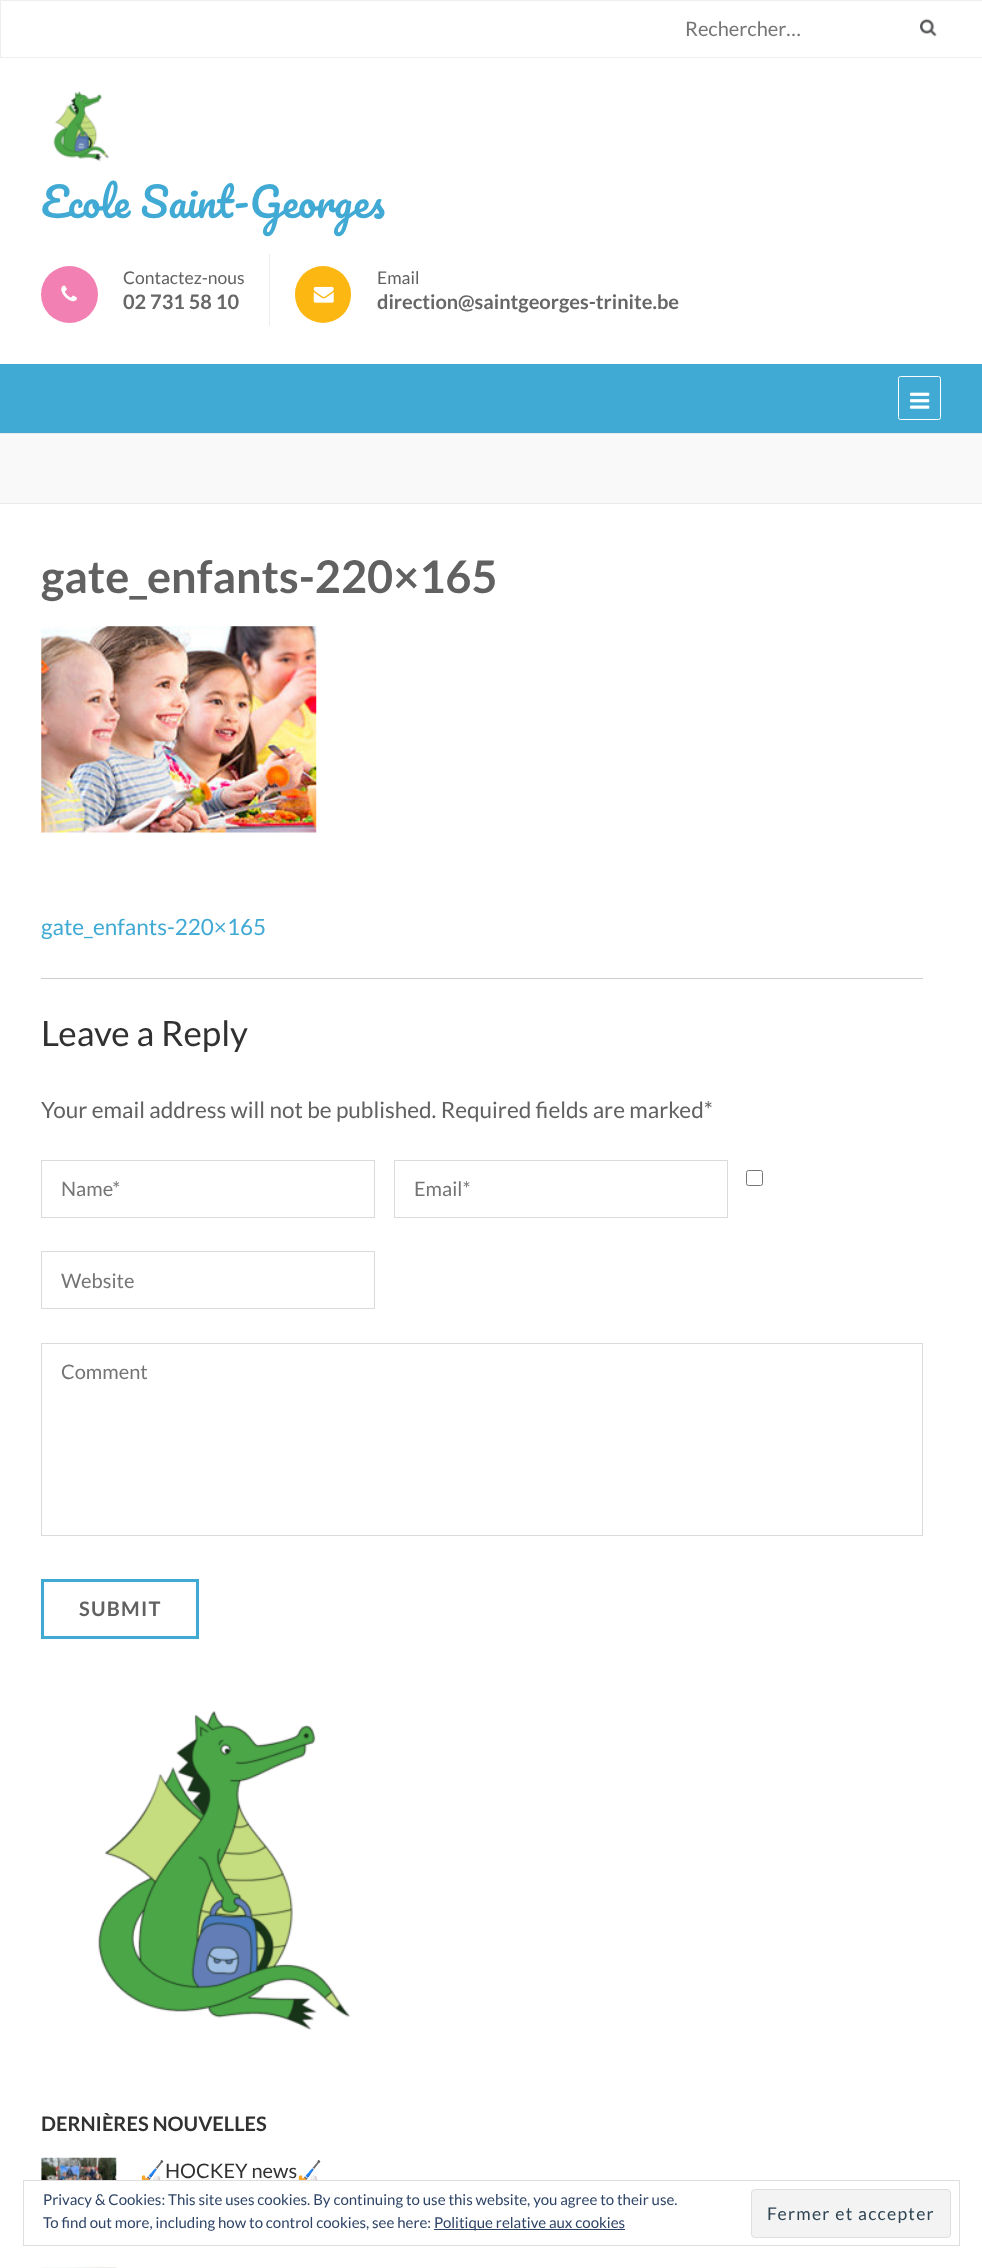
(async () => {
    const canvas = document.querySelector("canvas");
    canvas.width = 982;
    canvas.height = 2268;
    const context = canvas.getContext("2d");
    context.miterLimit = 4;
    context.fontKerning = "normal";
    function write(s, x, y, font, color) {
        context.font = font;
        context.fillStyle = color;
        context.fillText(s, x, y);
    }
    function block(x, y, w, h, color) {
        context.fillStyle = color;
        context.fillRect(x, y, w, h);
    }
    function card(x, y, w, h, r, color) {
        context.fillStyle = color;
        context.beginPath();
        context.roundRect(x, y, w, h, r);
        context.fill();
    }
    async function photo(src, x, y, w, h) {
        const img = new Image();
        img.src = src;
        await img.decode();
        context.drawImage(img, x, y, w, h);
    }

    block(0, 0, 982, 2268, "rgb(255, 255, 255)");
    context.strokeStyle = "rgb(238, 238, 238)";
    context.strokeRect(0.5, 0.5, 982, 57);
    write("Rechercher…", 685, 36, "20px Lato", "rgb(117, 117, 117)");
    await photo("media/1.png", 920, 18, 17, 19);
    await photo("media/2.png", 53, 91, 56, 71);
    write("Ecole Saint-Georges", 41, 218, "40px Pacifico", "rgb(65, 170, 212)");
    context.fillStyle = "rgb(243, 128, 178)";
    context.beginPath();
    context.arc(69.5, 294.5, 28.5, 0, Math.PI * 2);
    context.fill();
    await photo("media/3.png", 61, 285, 16, 17);
    write("Contactez-nous", 123, 284, "17.5px Lato", "rgb(97, 97, 97)");
    write("02 731 58 10", 123, 309, "bold 20px Lato", "rgb(103, 103, 103)");
    block(269, 254, 1, 72, "rgb(238, 238, 238)");
    card(295, 266, 56, 57, 28, "rgb(252, 183, 19)");
    await photo("media/4.png", 313, 286, 21, 17);
    write("Email", 377, 284, "17.5px Lato", "rgb(97, 97, 97)");
    write("direction@saintgeorges-trinite.be", 377, 309, "bold 20px Lato", "rgb(103, 103, 103)");
    block(0, 364, 982, 69, "rgb(65, 170, 212)");
    context.beginPath();
    context.roundRect(898.5, 376.5, 42, 43, 2);
    context.strokeStyle = "rgb(255, 255, 255)";
    context.stroke();
    await photo("media/5.png", 910, 392, 20, 17);
    block(0, 434, 982, 69, "rgb(249, 249, 249)");
    block(0, 433, 982, 1, "rgb(233, 233, 233)");
    block(0, 503, 982, 1, "rgb(233, 233, 233)");
    write("gate_enfants-220×165", 41, 593, "bold 45px Lato", "rgb(97, 97, 97)");
    await photo("media/6.png", 41, 626, 276, 207);
    write("gate_enfants-220×165", 41, 935, "22.5px Lato", "rgb(65, 170, 212)");
    block(41, 978, 882, 1, "rgb(204, 204, 204)");
    write("Leave a Reply", 41, 1046, "35px Lato", "rgb(49, 49, 49)");
    write("Your email address will not be published. Required fields are marked*", 41, 1118, "22.5px Lato", "rgb(97, 97, 97)");
    context.beginPath();
    context.roundRect(746.5, 1170.5, 16, 15, 2);
    context.strokeStyle = "rgb(118, 118, 118)";
    context.stroke();
    context.strokeStyle = "rgb(219, 219, 219)";
    context.strokeRect(41.5, 1160.5, 333, 57);
    write("Name*", 61, 1196, "20px Lato", "rgb(117, 117, 117)");
    context.strokeRect(394.5, 1160.5, 333, 57);
    write("Email*", 414, 1196, "20px Lato", "rgb(117, 117, 117)");
    context.strokeRect(41.5, 1251.5, 333, 57);
    write("Website", 61, 1288, "20px Lato", "rgb(117, 117, 117)");
    context.strokeRect(41.5, 1343.5, 881, 192);
    write("Comment", 61, 1379, "20px Lato", "rgb(117, 117, 117)");
    context.strokeStyle = "rgb(65, 170, 212)";
    context.lineWidth = 3;
    context.strokeRect(42.5, 1580.5, 155, 57);
    context.letterSpacing = "1.25px";
    write("SUBMIT", 79, 1616, "bold 20px Lato", "rgb(97, 97, 97)");
    await photo("media/7.png", 97, 1711, 254, 319);
    context.letterSpacing = "0px";
    write("DERNIÈRES NOUVELLES", 41, 2131, "bold 20px Lato", "rgb(49, 49, 49)");
    await photo("media/8.png", 41, 2157, 76, 23);
    write("🏑", 140, 2178, "20px Noto Color Emoji", "rgb(49, 49, 49)");
    write("HOCKEY news", 165, 2178, "20px Lato", "rgb(49, 49, 49)");
    write("🏑", 297, 2178, "20px Noto Color Emoji", "rgb(49, 49, 49)");
    await photo("media/9.png", 42, 2267, 75, 1);
    block(140, 2181, 181, 1, "rgb(255, 255, 255)");
    context.strokeStyle = "rgb(222, 222, 222)";
    context.lineWidth = 1;
    context.strokeRect(23.5, 2180.5, 936, 65);
    write("Privacy & Cookies: This site uses cookies. By continuing to use this website, you agree to their use.", 43, 2205, "15px Lato", "rgb(46, 68, 103)");
    write("To find out more, including how to control cookies, see here:", 43, 2228, "15px Lato", "rgb(46, 68, 103)");
    block(434, 2229, 191, 1, "rgb(46, 68, 103)");
    write("Politique relative aux cookies", 434, 2228, "15px Lato", "rgb(46, 68, 103)");
    context.fillStyle = "rgb(243, 243, 243)";
    context.beginPath();
    context.roundRect(751.5, 2189.5, 199, 48, 3.5);
    context.fill();
    context.stroke();
    context.letterSpacing = "1.25px";
    write("Fermer et accepter", 767, 2220, "17.5px Lato", "rgb(46, 68, 83)");
})();
